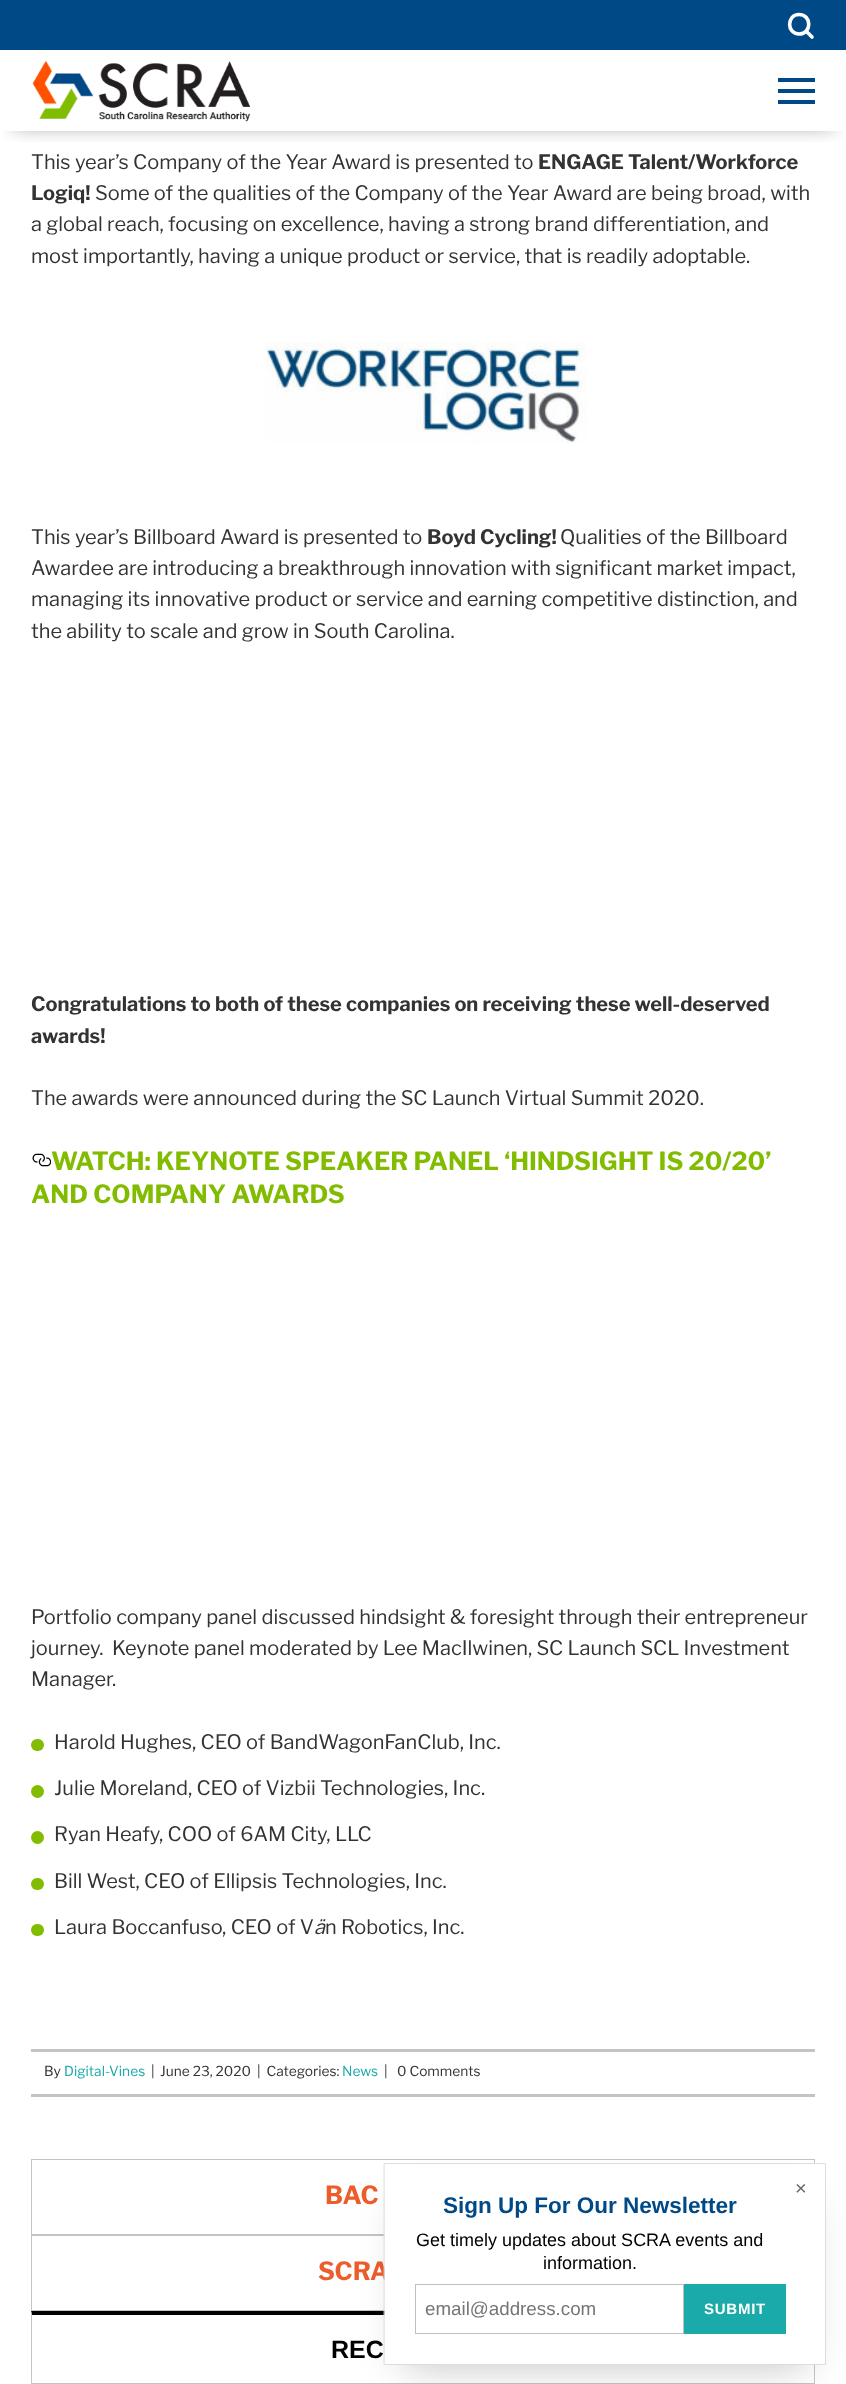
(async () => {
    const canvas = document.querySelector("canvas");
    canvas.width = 846;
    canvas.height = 2384;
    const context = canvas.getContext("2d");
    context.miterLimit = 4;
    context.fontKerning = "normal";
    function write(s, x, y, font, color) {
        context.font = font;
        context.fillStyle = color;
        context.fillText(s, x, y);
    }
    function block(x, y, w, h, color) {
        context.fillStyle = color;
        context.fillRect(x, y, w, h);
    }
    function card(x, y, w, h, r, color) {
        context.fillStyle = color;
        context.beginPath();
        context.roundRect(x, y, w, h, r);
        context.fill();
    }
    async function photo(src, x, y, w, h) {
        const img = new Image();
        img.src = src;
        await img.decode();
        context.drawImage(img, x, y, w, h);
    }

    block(0, 0, 846, 2384, "rgb(255, 255, 255)");
    block(0, 0, 846, 50, "rgb(0, 73, 135)");
    context.save();
    context.beginPath();
    context.rect(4, 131, 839, 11);
    context.clip();
    context.fillStyle = "rgba(0, 0, 0, 0.5)";
    context.filter = "blur(10.5px)";
    context.beginPath();
    context.rect(13, 68, 821, 56);
    context.fill();
    context.filter = "none";
    context.restore();
    context.beginPath();
    context.moveTo(799, 14.5);
    context.bezierCurveTo(812, 14.5, 812, 34, 799, 34);
    context.bezierCurveTo(786.5, 34, 786.5, 14.5, 799, 14.5);
    context.closePath();
    context.moveTo(806, 31);
    context.lineTo(812, 37);
    context.strokeStyle = "rgb(255, 255, 255)";
    context.lineWidth = 3.6;
    context.lineCap = "round";
    context.lineJoin = "round";
    context.stroke();
    await photo("media/1.png", 32, 60, 218, 62);
    block(778, 89, 37, 4, "rgb(0, 73, 134)");
    block(778, 78, 37, 4, "rgb(0, 73, 134)");
    block(778, 100, 37, 4, "rgb(0, 73, 134)");
    write("This year’s Company of the Year Award is presented to", 31, 169, "20px Libre Franklin", "rgb(51, 51, 51)");
    write("ENGAGE Talent/Workforce", 538, 169, "bold 20px Libre Franklin", "rgb(51, 51, 51)");
    write("Logiq!", 31, 200, "bold 20px Libre Franklin", "rgb(51, 51, 51)");
    write("Some of the qualities of the Company of the Year Award are being broad, with", 95, 200, "20px Libre Franklin", "rgb(51, 51, 51)");
    write("a global reach, focusing on excellence, having a strong brand differentiation, and", 31, 231, "20px Libre Franklin", "rgb(51, 51, 51)");
    write("most importantly, having a unique product or service, that is readily adoptable.", 31, 263, "20px Libre Franklin", "rgb(51, 51, 51)");
    await photo("media/2.png", 266, 342, 321, 101);
    write("This year’s Billboard Award is presented to", 31, 544, "20px Libre Franklin", "rgb(51, 51, 51)");
    write("Boyd Cycling!", 427, 544, "bold 20px Libre Franklin", "rgb(51, 51, 51)");
    write("Qualities of the Billboard", 560, 544, "20px Libre Franklin", "rgb(51, 51, 51)");
    write("Awardee are introducing a breakthrough innovation with significant market impact,", 31, 575, "20px Libre Franklin", "rgb(51, 51, 51)");
    write("managing its innovative product or service and earning competitive distinction, and", 31, 606, "20px Libre Franklin", "rgb(51, 51, 51)");
    write("the ability to scale and grow in South Carolina.", 31, 638, "20px Libre Franklin", "rgb(51, 51, 51)");
    write("Congratulations to both of these companies on receiving these well-deserved", 31, 1011, "bold 20px Libre Franklin", "rgb(51, 51, 51)");
    write("awards!", 31, 1043, "bold 20px Libre Franklin", "rgb(51, 51, 51)");
    write("The awards were announced during the SC Launch Virtual Summit 2020.", 31, 1105, "20px Libre Franklin", "rgb(51, 51, 51)");
    await photo("media/3.png", 32, 1153, 19, 14);
    write("WATCH: KEYNOTE SPEAKER PANEL ‘HINDSIGHT IS 20/20’", 51, 1170, "bold 25px Libre Franklin", "rgb(130, 188, 0)");
    write("AND COMPANY AWARDS", 31, 1203, "bold 25px Libre Franklin", "rgb(130, 188, 0)");
    write("Portfolio company panel discussed hindsight & foresight through their entrepreneur", 31, 1624, "20px Libre Franklin", "rgb(51, 51, 51)");
    write("journey.  Keynote panel moderated by Lee MacIlwinen, SC Launch SCL Investment", 31, 1655, "20px Libre Franklin", "rgb(51, 51, 51)");
    write("Manager.", 31, 1686, "20px Libre Franklin", "rgb(51, 51, 51)");
    card(31, 1739, 13, 12, 6, "rgb(130, 188, 0)");
    write("Harold Hughes, CEO of BandWagonFanClub, Inc.", 54, 1749, "20px Libre Franklin", "rgb(51, 51, 51)");
    context.fillStyle = "rgb(130, 188, 0)";
    context.beginPath();
    context.arc(37.5, 1791.5, 6.5, 0, Math.PI * 2);
    context.fill();
    write("Julie Moreland, CEO of Vizbii Technologies, Inc.", 54, 1795, "20px Libre Franklin", "rgb(51, 51, 51)");
    context.fillStyle = "rgb(130, 188, 0)";
    context.beginPath();
    context.arc(37.5, 1837.5, 6.5, 0, Math.PI * 2);
    context.fill();
    write("Ryan Heafy, COO of 6AM City, LLC", 54, 1841, "20px Libre Franklin", "rgb(51, 51, 51)");
    card(31, 1878, 13, 12, 6, "rgb(130, 188, 0)");
    write("Bill West, CEO of Ellipsis Technologies, Inc.", 54, 1888, "20px Libre Franklin", "rgb(51, 51, 51)");
    card(31, 1924, 13, 12, 6, "rgb(130, 188, 0)");
    write("Laura Boccanfuso, CEO of V", 54, 1934, "20px Libre Franklin", "rgb(51, 51, 51)");
    write("ä", 314, 1934, "italic 20px Libre Franklin", "rgb(51, 51, 51)");
    write("n Robotics, Inc.", 325, 1934, "20px Libre Franklin", "rgb(51, 51, 51)");
    block(31, 2049, 784, 3, "rgb(196, 196, 196)");
    block(31, 2094, 784, 3, "rgb(196, 196, 196)");
    write("By", 44, 2076, "13.75px Libre Franklin", "rgb(51, 51, 51)");
    write("Digital-Vines", 64, 2076, "13.75px Libre Franklin", "rgb(25, 170, 170)");
    write("|", 151, 2076, "13.75px Libre Franklin", "rgb(51, 51, 51)");
    write("June 23, 2020", 160, 2076, "13.75px Libre Franklin", "rgb(51, 51, 51)");
    write("|  Categories:", 257, 2076, "13.75px Libre Franklin", "rgb(51, 51, 51)");
    write("News", 342, 2076, "13.75px Libre Franklin", "rgb(25, 170, 170)");
    write("|", 384, 2076, "13.75px Libre Franklin", "rgb(51, 51, 51)");
    write("0 Comments", 397, 2076, "13.75px Libre Franklin", "rgb(51, 51, 51)");
    context.strokeStyle = "rgb(196, 196, 196)";
    context.lineWidth = 1;
    context.lineJoin = "miter";
    context.strokeRect(31.5, 2159.5, 783, 75);
    write("BAC", 325, 2204, "bold 25px Libre Franklin", "rgb(237, 93, 42)");
    context.strokeRect(31.5, 2235.5, 783, 75);
    write("SCRA", 318, 2280, "bold 25px Libre Franklin", "rgb(237, 93, 42)");
    context.fillStyle = "rgb(0, 0, 0)";
    context.beginPath();
    context.moveTo(31, 2311);
    context.lineTo(815, 2311);
    context.lineTo(814, 2315);
    context.lineTo(32, 2315);
    context.closePath();
    context.fill();
    context.fillStyle = "rgb(196, 196, 196)";
    context.beginPath();
    context.moveTo(815, 2311);
    context.lineTo(815, 2384);
    context.lineTo(814, 2382);
    context.lineTo(814, 2315);
    context.closePath();
    context.fill();
    block(31, 2383, 784, 1, "rgb(196, 196, 196)");
    context.beginPath();
    context.moveTo(31, 2384);
    context.lineTo(31, 2311);
    context.lineTo(32, 2315);
    context.lineTo(32, 2382);
    context.closePath();
    context.fill();
    write("REC", 331, 2358, "bold 25px Liberation Sans", "rgb(0, 0, 0)");
    context.fillStyle = "rgba(0, 0, 0, 0.25)";
    context.filter = "blur(20px)";
    context.beginPath();
    context.rect(404, 2203, 402, 162);
    context.fill();
    context.filter = "none";
    context.fillStyle = "rgb(255, 255, 255)";
    context.beginPath();
    context.rect(384.5, 2163.5, 441, 201);
    context.fill();
    context.strokeStyle = "rgb(221, 221, 221)";
    context.stroke();
    write("×", 795, 2195, "20px Liberation Sans", "rgb(102, 102, 102)");
    write("Sign Up For Our Newsletter", 443, 2213, "bold 22.5px Liberation Sans", "rgb(0, 73, 135)");
    write("Get timely updates about SCRA events and", 416, 2246, "18px Liberation Sans", "rgb(0, 0, 0)");
    write("information.", 543, 2269, "18px Liberation Sans", "rgb(0, 0, 0)");
    context.strokeStyle = "rgb(191, 191, 191)";
    context.strokeRect(415.5, 2284.5, 268, 49);
    write("email@address.com", 425, 2315, "18.75px Liberation Sans", "rgb(117, 117, 117)");
    block(684, 2284, 102, 50, "rgb(27, 170, 170)");
    context.letterSpacing = "0.75px";
    write("SUBMIT", 704, 2314, "bold 15px Liberation Sans", "rgb(255, 255, 255)");
})();
